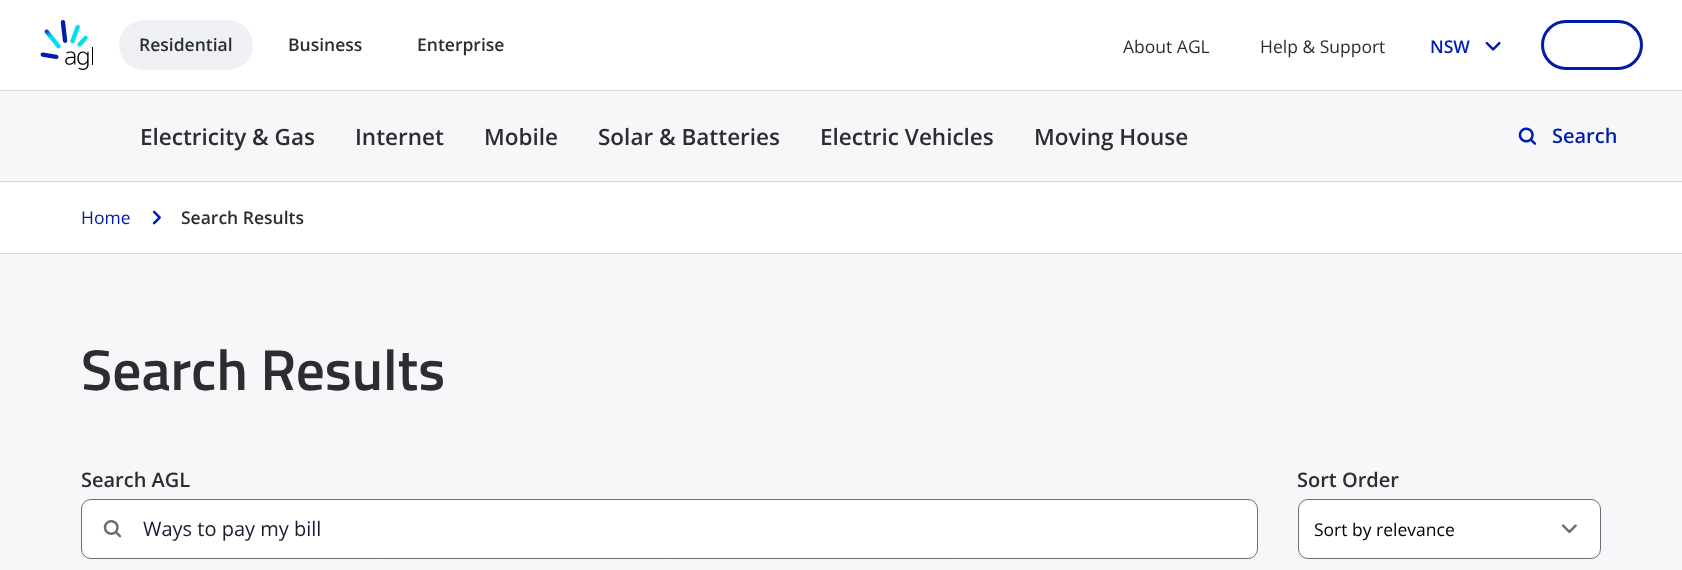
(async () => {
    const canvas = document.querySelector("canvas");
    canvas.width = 1682;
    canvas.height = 570;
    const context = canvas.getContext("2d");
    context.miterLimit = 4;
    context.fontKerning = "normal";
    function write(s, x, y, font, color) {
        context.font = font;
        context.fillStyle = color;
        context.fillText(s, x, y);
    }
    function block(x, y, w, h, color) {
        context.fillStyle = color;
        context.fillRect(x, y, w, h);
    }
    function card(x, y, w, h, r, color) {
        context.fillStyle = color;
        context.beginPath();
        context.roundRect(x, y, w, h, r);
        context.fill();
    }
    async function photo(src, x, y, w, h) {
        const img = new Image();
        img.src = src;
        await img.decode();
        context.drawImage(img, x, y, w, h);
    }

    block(0, 0, 1682, 570, "rgb(255, 255, 255)");
    block(0, 90, 1682, 1, "rgb(214, 217, 224)");
    await photo("media/1.png", 40, 20, 53, 50);
    card(119, 20, 134, 50, 25, "rgb(239, 240, 244)");
    write("Residential", 139, 51, "600 17.5px Open Sans", "rgb(43, 46, 49)");
    write("Business", 288, 51, "600 17.5px Open Sans", "rgb(43, 46, 49)");
    write("Enterprise", 417, 51, "600 17.5px Open Sans", "rgb(43, 46, 49)");
    write("About AGL", 1123, 53, "17.5px Open Sans", "rgb(43, 46, 49)");
    write("Help & Support", 1260, 53, "17.5px Open Sans", "rgb(43, 46, 49)");
    write("NSW", 1430, 53, "600 17.5px Open Sans", "rgb(0, 28, 176)");
    await photo("media/2.png", 1485, 41, 16, 10);
    context.beginPath();
    context.roundRect(1542.5, 21.5, 99, 47, 23.5);
    context.strokeStyle = "rgb(0, 28, 176)";
    context.lineWidth = 3;
    context.stroke();
    block(0, 91, 1682, 92, "rgb(247, 247, 249)");
    block(0, 181, 1682, 1, "rgb(214, 217, 224)");
    write("Electricity & Gas", 140, 145, "600 22.5px Open Sans", "rgb(43, 46, 49)");
    write("Internet", 355, 145, "600 22.5px Open Sans", "rgb(43, 46, 49)");
    write("Mobile", 484, 145, "600 22.5px Open Sans", "rgb(43, 46, 49)");
    write("Solar & Batteries", 598, 145, "600 22.5px Open Sans", "rgb(43, 46, 49)");
    write("Electric Vehicles", 820, 145, "600 22.5px Open Sans", "rgb(43, 46, 49)");
    write("Moving House", 1034, 145, "600 22.5px Open Sans", "rgb(43, 46, 49)");
    await photo("media/3.png", 1518, 127, 19, 18);
    write("Search", 1552, 143, "600 20px Open Sans", "rgb(0, 28, 176)");
    block(0, 253, 1682, 1, "rgb(214, 217, 224)");
    write("Home", 81, 224, "17.5px Open Sans", "rgb(0, 28, 176)");
    await photo("media/4.png", 152, 210, 9, 15);
    write("Search Results", 181, 224, "600 17.5px Open Sans", "rgb(43, 46, 49)");
    block(0, 254, 1682, 316, "rgb(247, 247, 249)");
    write("Search Results", 81, 390, "600 57.5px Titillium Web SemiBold", "rgb(43, 46, 49)");
    write("Search AGL", 81, 487, "600 20px Open Sans", "rgb(43, 46, 49)");
    card(81, 499, 1177, 60, 10, "rgb(255, 255, 255)");
    await photo("media/5.png", 103, 520, 19, 18);
    context.beginPath();
    context.roundRect(81.5, 499.5, 1176, 59, 9.5);
    context.strokeStyle = "rgb(107, 109, 119)";
    context.lineWidth = 1;
    context.stroke();
    write("Ways to pay my bill", 143, 536, "20px Open Sans", "rgb(27, 27, 50)");
    write("Sort Order", 1297, 487, "600 20px Open Sans", "rgb(43, 46, 49)");
    card(1298, 499, 303, 60, 10, "rgb(255, 255, 255)");
    await photo("media/6.png", 1561, 524, 16, 10);
    context.beginPath();
    context.roundRect(1298.5, 499.5, 302, 59, 9.5);
    context.stroke();
    write("Sort by relevance", 1314, 536, "17.5px Open Sans", "rgb(0, 0, 0)");
})();
